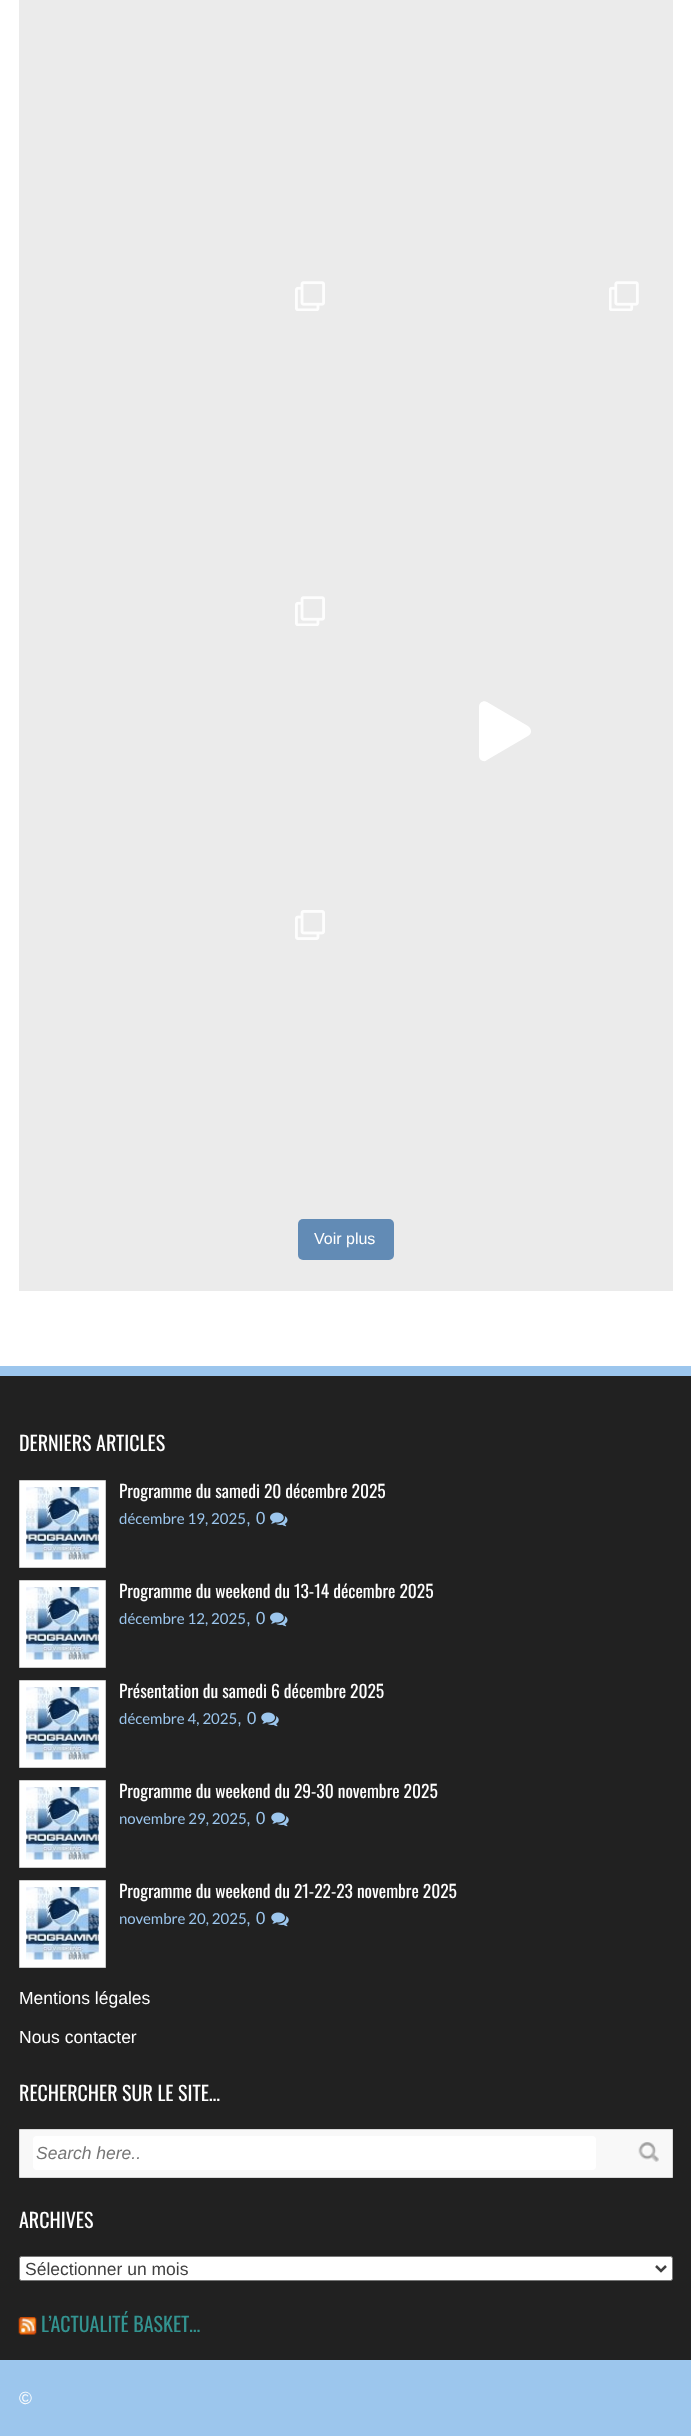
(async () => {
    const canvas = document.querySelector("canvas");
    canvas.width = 691;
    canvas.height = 2436;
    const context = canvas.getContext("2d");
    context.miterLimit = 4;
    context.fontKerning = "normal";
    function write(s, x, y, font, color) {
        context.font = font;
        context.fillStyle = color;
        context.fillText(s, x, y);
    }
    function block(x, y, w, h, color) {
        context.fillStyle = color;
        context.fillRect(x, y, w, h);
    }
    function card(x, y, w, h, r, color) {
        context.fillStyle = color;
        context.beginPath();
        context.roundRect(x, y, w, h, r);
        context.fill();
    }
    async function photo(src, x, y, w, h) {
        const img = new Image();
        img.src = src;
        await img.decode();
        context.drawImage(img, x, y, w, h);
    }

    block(0, 0, 691, 2436, "rgb(255, 255, 255)");
    block(19, 0, 654, 1291, "rgb(235, 235, 235)");
    await photo("media/1.png", 295, 281, 30, 30);
    await photo("media/2.png", 609, 281, 30, 30);
    await photo("media/1.png", 295, 596, 30, 30);
    context.fillStyle = "rgb(255, 255, 255)";
    context.beginPath();
    context.moveTo(528, 726);
    context.lineTo(487, 702);
    context.bezierCurveTo(484, 700, 479, 702, 479, 707);
    context.lineTo(479, 756);
    context.bezierCurveTo(479, 760, 484, 763, 487, 760);
    context.lineTo(528, 736);
    context.bezierCurveTo(532, 734, 532, 729, 528, 726);
    context.closePath();
    context.fill();
    await photo("media/3.png", 295, 910, 30, 30);
    card(298, 1219, 96, 41, 5, "rgb(98, 139, 181)");
    write("Voir plus", 314, 1244, "16px Liberation Sans", "rgb(255, 255, 255)");
    block(0, 1376, 691, 984, "rgb(33, 33, 33)");
    block(0, 1366, 691, 10, "rgb(156, 198, 237)");
    write("DERNIERS ARTICLES", 19, 1451, "20px Oswald", "rgb(255, 255, 255)");
    context.beginPath();
    context.rect(19.5, 1480.5, 86, 87);
    context.fill();
    context.strokeStyle = "rgb(204, 204, 204)";
    context.stroke();
    await photo("media/4.png", 26, 1487, 73, 73);
    write("Programme du samedi 20 décembre 2025", 119, 1498, "17.5px Oswald", "rgb(255, 255, 255)");
    write("décembre 19, 2025", 119, 1524, "15px Lato", "rgb(156, 198, 237)");
    write(", 0", 246, 1524, "17.5px Liberation Sans", "rgb(156, 198, 237)");
    await photo("media/5.png", 270, 1512, 18, 15);
    context.fillStyle = "rgb(255, 255, 255)";
    context.beginPath();
    context.rect(19.5, 1580.5, 86, 87);
    context.fill();
    context.stroke();
    await photo("media/6.png", 26, 1587, 73, 73);
    write("Programme du weekend du 13-14 décembre 2025", 119, 1598, "17.5px Oswald", "rgb(255, 255, 255)");
    write("décembre 12, 2025", 119, 1624, "15px Lato", "rgb(156, 198, 237)");
    write(", 0", 246, 1624, "17.5px Liberation Sans", "rgb(156, 198, 237)");
    await photo("media/5.png", 270, 1612, 18, 15);
    context.fillStyle = "rgb(255, 255, 255)";
    context.beginPath();
    context.rect(19.5, 1680.5, 86, 87);
    context.fill();
    context.stroke();
    await photo("media/6.png", 26, 1687, 73, 73);
    write("Présentation du samedi 6 décembre 2025", 119, 1698, "17.5px Oswald", "rgb(255, 255, 255)");
    write("décembre 4, 2025", 119, 1724, "15px Lato", "rgb(156, 198, 237)");
    write(", 0", 237, 1724, "17.5px Liberation Sans", "rgb(156, 198, 237)");
    await photo("media/7.png", 261, 1712, 18, 15);
    context.fillStyle = "rgb(255, 255, 255)";
    context.beginPath();
    context.rect(19.5, 1780.5, 86, 87);
    context.fill();
    context.stroke();
    await photo("media/6.png", 26, 1787, 73, 73);
    write("Programme du weekend du 29-30 novembre 2025", 119, 1798, "17.5px Oswald", "rgb(255, 255, 255)");
    write("novembre 29, 2025", 119, 1824, "15px Lato", "rgb(156, 198, 237)");
    write(", 0", 246, 1824, "17.5px Liberation Sans", "rgb(156, 198, 237)");
    await photo("media/7.png", 271, 1812, 18, 15);
    context.fillStyle = "rgb(255, 255, 255)";
    context.beginPath();
    context.rect(19.5, 1880.5, 86, 87);
    context.fill();
    context.stroke();
    await photo("media/6.png", 26, 1887, 73, 73);
    write("Programme du weekend du 21-22-23 novembre 2025", 119, 1898, "17.5px Oswald", "rgb(255, 255, 255)");
    write("novembre 20, 2025", 119, 1924, "15px Lato", "rgb(156, 198, 237)");
    write(", 0", 246, 1924, "17.5px Liberation Sans", "rgb(156, 198, 237)");
    await photo("media/7.png", 271, 1912, 18, 15);
    write("Mentions légales", 19, 2004, "17.5px Liberation Sans", "rgb(255, 255, 255)");
    write("Nous contacter", 19, 2043, "17.5px Liberation Sans", "rgb(255, 255, 255)");
    write("RECHERCHER SUR LE SITE…", 19, 2101, "20px Oswald", "rgb(255, 255, 255)");
    context.fillStyle = "rgb(248, 248, 248)";
    context.beginPath();
    context.rect(19.5, 2129.5, 653, 48);
    context.fill();
    context.strokeStyle = "rgb(217, 217, 217)";
    context.stroke();
    card(33, 2136, 563, 34, 4, "rgb(255, 255, 255)");
    write("Search here..", 36, 2159, "italic 17.5px Liberation Sans", "rgb(119, 119, 119)");
    await photo("media/8.png", 638, 2142, 21, 20);
    write("ARCHIVES", 19, 2228, "20px Oswald", "rgb(255, 255, 255)");
    context.beginPath();
    context.roundRect(19.5, 2256.5, 653, 24, 2);
    context.fill();
    context.strokeStyle = "rgb(118, 118, 118)";
    context.stroke();
    context.beginPath();
    context.moveTo(656, 2266);
    context.lineTo(661, 2271);
    context.lineTo(666, 2266);
    context.strokeStyle = "rgb(64, 64, 64)";
    context.lineWidth = 2.5;
    context.stroke();
    write("Sélectionner un mois", 25, 2275, "17.5px Liberation Sans", "rgb(64, 64, 64)");
    await photo("media/9.png", 18, 2317, 19, 18);
    write("L’ACTUALITÉ BASKET…", 41, 2332, "20px Oswald", "rgb(51, 147, 144)");
    block(0, 2360, 691, 76, "rgb(156, 198, 237)");
    write("©", 19, 2404, "17.5px Liberation Sans", "rgb(255, 255, 255)");
})();
